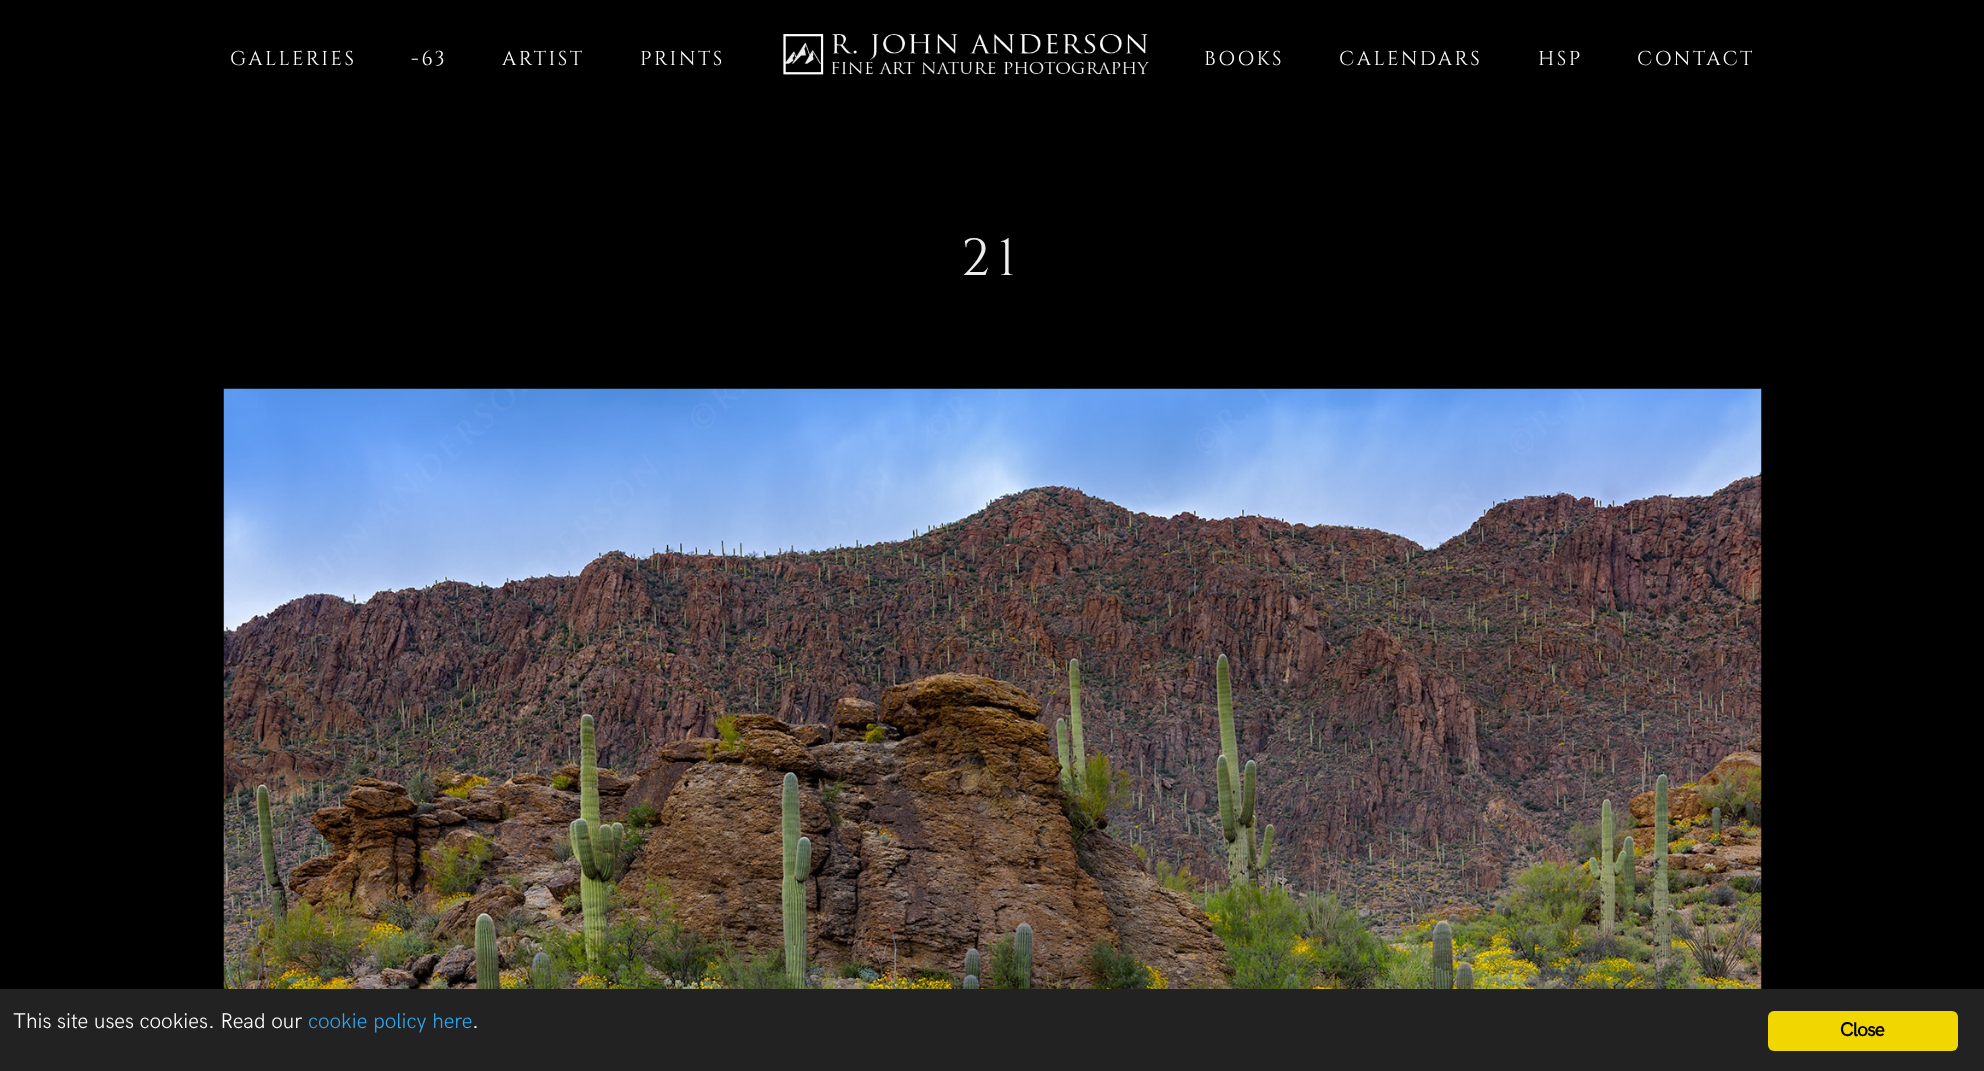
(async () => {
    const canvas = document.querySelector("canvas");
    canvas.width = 1984;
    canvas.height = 1071;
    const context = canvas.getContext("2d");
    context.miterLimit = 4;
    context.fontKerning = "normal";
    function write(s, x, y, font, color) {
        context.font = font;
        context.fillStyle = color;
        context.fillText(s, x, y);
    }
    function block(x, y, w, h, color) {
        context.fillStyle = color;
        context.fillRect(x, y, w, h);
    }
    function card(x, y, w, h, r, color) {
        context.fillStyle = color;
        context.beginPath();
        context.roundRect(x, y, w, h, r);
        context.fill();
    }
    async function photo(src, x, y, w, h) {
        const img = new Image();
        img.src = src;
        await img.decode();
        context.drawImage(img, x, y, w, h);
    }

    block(0, 0, 1984, 1071, "rgb(0, 0, 0)");
    context.letterSpacing = "2.5px";
    write("GALLERIES", 230, 65, "20px Cinzel", "rgb(255, 255, 255)");
    write("-63", 411, 65, "20px Cinzel", "rgb(255, 255, 255)");
    write("ARTIST", 502, 65, "20px Cinzel", "rgb(255, 255, 255)");
    write("PRINTS", 640, 65, "20px Cinzel", "rgb(255, 255, 255)");
    await photo("media/1.png", 783, 33, 366, 42);
    write("BOOKS", 1204, 65, "20px Cinzel", "rgb(255, 255, 255)");
    write("CALENDARS", 1339, 65, "20px Cinzel", "rgb(255, 255, 255)");
    write("HSP", 1538, 65, "20px Cinzel", "rgb(255, 255, 255)");
    write("CONTACT", 1637, 65, "20px Cinzel", "rgb(255, 255, 255)");
    context.letterSpacing = "8px";
    write("21", 961, 275, "52px Cinzel", "rgb(238, 238, 238)");
    await photo("media/2.png", 223, 388, 1539, 601);
    block(0, 989, 1984, 82, "rgb(34, 34, 34)");
    context.letterSpacing = "0px";
    write("This site uses cookies. Read our", 13, 1028, "300 21.25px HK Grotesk", "rgb(255, 255, 255)");
    write("cookie policy here", 308, 1028, "300 21.25px HK Grotesk", "rgb(49, 168, 240)");
    write(".", 472, 1028, "300 21.25px HK Grotesk", "rgb(255, 255, 255)");
    card(1768, 1011, 190, 40, 6, "rgb(241, 214, 0)");
    context.letterSpacing = "-1px";
    write("Close", 1840, 1036, "600 20px HK Grotesk", "rgb(0, 0, 0)");
})();
